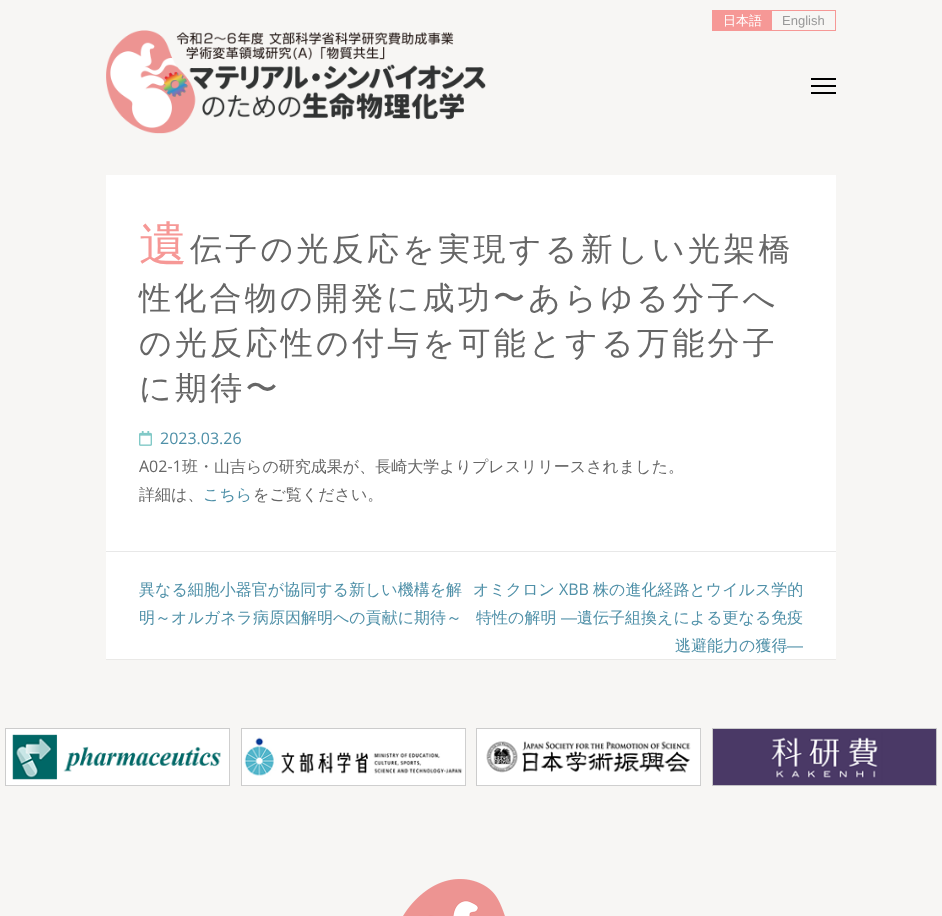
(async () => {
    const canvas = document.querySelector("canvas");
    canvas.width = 942;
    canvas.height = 916;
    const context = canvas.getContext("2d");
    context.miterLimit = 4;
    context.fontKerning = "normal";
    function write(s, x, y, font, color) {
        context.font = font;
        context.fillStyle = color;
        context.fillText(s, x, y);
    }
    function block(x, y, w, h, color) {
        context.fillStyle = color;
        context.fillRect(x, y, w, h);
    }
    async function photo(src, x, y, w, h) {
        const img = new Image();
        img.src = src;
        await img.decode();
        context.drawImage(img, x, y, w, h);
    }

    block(0, 0, 942, 916, "rgb(247, 246, 244)");
    context.strokeStyle = "rgb(246, 152, 150)";
    context.strokeRect(712.5, 10.5, 123, 20);
    block(713, 11, 59, 19, "rgb(246, 152, 150)");
    write("日本語", 723, 25, "500 13px WenQuanYi Zen Hei", "rgb(255, 255, 255)");
    write("English", 782, 25, "13px Liberation Sans", "rgb(153, 153, 153)");
    await photo("media/1.png", 106, 30, 380, 104);
    block(811, 78, 25, 2, "rgb(0, 0, 0)");
    block(811, 85, 25, 2, "rgb(0, 0, 0)");
    block(811, 92, 25, 2, "rgb(0, 0, 0)");
    context.fillStyle = "rgba(0, 0, 0, 0.05)";
    context.filter = "blur(0.5px)";
    context.beginPath();
    context.rect(106, 176, 730, 484);
    context.fill();
    context.filter = "none";
    block(106, 175, 730, 484, "rgb(255, 255, 255)");
    block(106, 551, 730, 1, "rgb(232, 232, 232)");
    context.letterSpacing = "3.25px";
    write("遺", 139, 260, "48px Noto Sans", "rgb(246, 152, 150)");
    write("伝子の光反応を実現する新しい光架橋", 190, 260, "500 32px WenQuanYi Zen Hei", "rgb(102, 102, 102)");
    write("性化合物の開発に成功〜あらゆる分子へ", 139, 309, "500 32px WenQuanYi Zen Hei", "rgb(102, 102, 102)");
    write("の光反応性の付与を可能とする万能分子", 139, 354, "500 32px WenQuanYi Zen Hei", "rgb(102, 102, 102)");
    write("に期待〜", 139, 399, "500 32px WenQuanYi Zen Hei", "rgb(102, 102, 102)");
    await photo("media/2.png", 139, 431, 13, 15);
    context.letterSpacing = "0px";
    write("2023.03.26", 160, 444, "16px Open Sans", "rgb(79, 144, 168)");
    write("A02-1", 139, 472, "16px Open Sans", "rgb(102, 102, 102)");
    write("班・山吉らの研究成果が、長崎大学よりプレスリリースされました。", 182, 472, "500 16px WenQuanYi Zen Hei", "rgb(102, 102, 102)");
    write("詳細は、", 139, 500, "500 16px WenQuanYi Zen Hei", "rgb(102, 102, 102)");
    write("こちら", 203, 500, "500 16px WenQuanYi Zen Hei", "rgb(79, 144, 168)");
    write("をご覧ください。", 253, 500, "500 16px WenQuanYi Zen Hei", "rgb(102, 102, 102)");
    write("異なる細胞小器官が協同する新しい機構を解", 139, 595, "500 16px WenQuanYi Zen Hei", "rgb(79, 144, 168)");
    write("明～オルガネラ病原因解明への貢献に期待～", 139, 623, "500 16px WenQuanYi Zen Hei", "rgb(79, 144, 168)");
    write("オミクロン", 473, 595, "500 16px WenQuanYi Zen Hei", "rgb(79, 144, 168)");
    write("XBB", 559, 595, "16px Open Sans", "rgb(79, 144, 168)");
    write("株の進化経路とウイルス学的", 593, 595, "500 16px WenQuanYi Zen Hei", "rgb(79, 144, 168)");
    write("特性の解明", 476, 623, "500 16px WenQuanYi Zen Hei", "rgb(79, 144, 168)");
    write("―", 561, 623, "16px Liberation Sans", "rgb(79, 144, 168)");
    write("遺伝子組換えによる更なる免疫", 577, 623, "500 16px WenQuanYi Zen Hei", "rgb(79, 144, 168)");
    write("逃避能力の獲得", 675, 651, "500 16px WenQuanYi Zen Hei", "rgb(79, 144, 168)");
    write("―", 787, 651, "16px Liberation Sans", "rgb(79, 144, 168)");
    await photo("media/3.png", 5, 728, 225, 58);
    await photo("media/4.png", 241, 728, 225, 58);
    await photo("media/5.png", 476, 728, 225, 58);
    await photo("media/6.png", 712, 728, 225, 58);
    await photo("media/7.png", 403, 879, 102, 37);
})();
